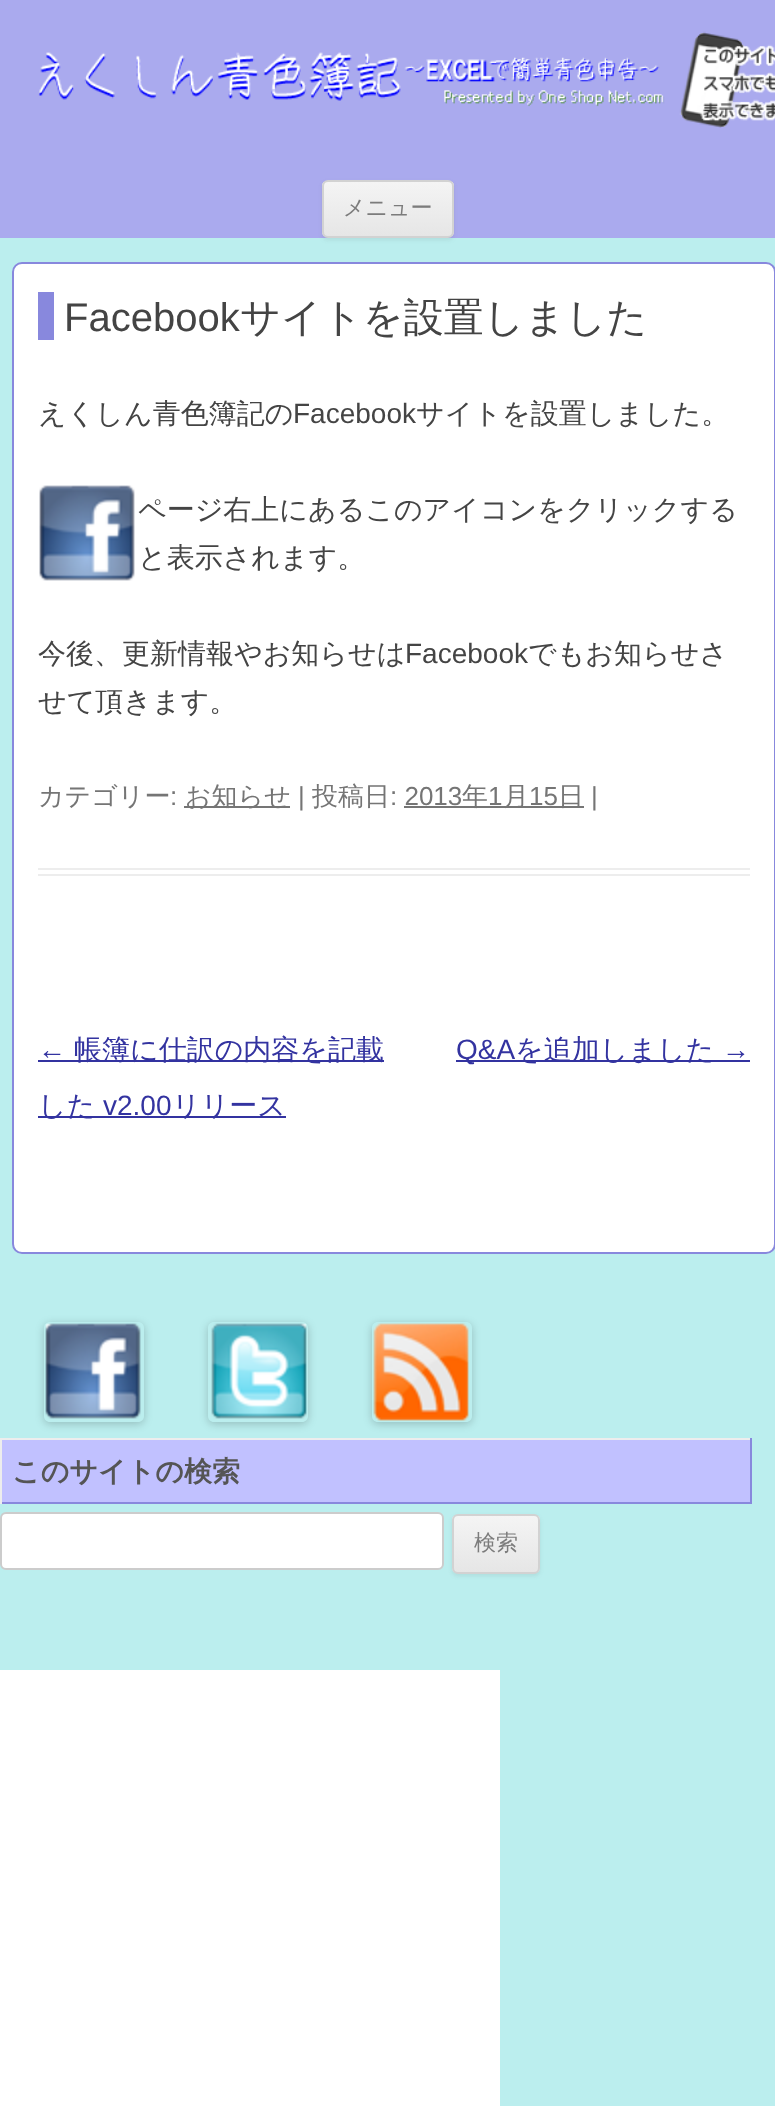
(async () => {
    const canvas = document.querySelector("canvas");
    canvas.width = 775;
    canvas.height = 2106;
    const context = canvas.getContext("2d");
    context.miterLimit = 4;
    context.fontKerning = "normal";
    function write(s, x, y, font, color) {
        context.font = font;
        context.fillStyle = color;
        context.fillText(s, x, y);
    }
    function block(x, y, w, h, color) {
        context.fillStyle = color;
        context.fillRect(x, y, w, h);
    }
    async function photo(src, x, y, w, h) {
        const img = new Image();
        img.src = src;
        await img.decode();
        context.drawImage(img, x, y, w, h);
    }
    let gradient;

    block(0, 0, 775, 2106, "rgb(187, 238, 238)");
    block(0, 0, 775, 238, "rgb(170, 170, 238)");
    await photo("media/1.png", 38, 31, 737, 97);
    context.fillStyle = "rgba(64, 64, 64, 0.1)";
    context.filter = "blur(2px)";
    context.beginPath();
    context.roundRect(322, 182, 132, 58, 6);
    context.fill();
    context.filter = "none";
    context.save();
    context.beginPath();
    context.roundRect(322, 180, 132, 58, 6);
    context.clip();
    gradient = context.createLinearGradient(388, 182, 388, 236);
    gradient.addColorStop(0, "rgb(244, 244, 244)");
    gradient.addColorStop(1, "rgb(230, 230, 230)");
    context.fillStyle = gradient;
    context.fillRect(322, 182, 132, 54);
    context.restore();
    context.beginPath();
    context.roundRect(323, 181, 130, 56, 5);
    context.strokeStyle = "rgb(210, 210, 210)";
    context.lineWidth = 2;
    context.stroke();
    write("メニュー", 343, 215, "500 22px WenQuanYi Zen Hei", "rgb(124, 124, 124)");
    context.fillStyle = "rgb(255, 255, 255)";
    context.beginPath();
    context.roundRect(13, 263, 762, 990, 9);
    context.fill();
    context.strokeStyle = "rgb(136, 136, 221)";
    context.stroke();
    block(38, 868, 712, 2, "rgb(237, 237, 237)");
    block(38, 874, 712, 2, "rgb(237, 237, 237)");
    block(38, 292, 16, 48, "rgb(136, 136, 221)");
    write("Facebook", 64, 331, "40px Liberation Sans", "rgb(68, 68, 68)");
    write("サイトを設置しました", 240, 331, "500 40px WenQuanYi Zen Hei", "rgb(68, 68, 68)");
    write("えくしん青色簿記の", 38, 423, "500 28px WenQuanYi Zen Hei", "rgb(68, 68, 68)");
    write("Facebook", 293, 423, "28px Liberation Sans", "rgb(68, 68, 68)");
    write("サイトを設置しました。", 416, 423, "500 28px WenQuanYi Zen Hei", "rgb(68, 68, 68)");
    await photo("media/2.png", 39, 485, 96, 96);
    write("ページ右上にあるこのアイコンをクリックする", 138, 519, "500 28px WenQuanYi Zen Hei", "rgb(68, 68, 68)");
    write("と表示されます。", 138, 567, "500 28px WenQuanYi Zen Hei", "rgb(68, 68, 68)");
    write("今後、更新情報やお知らせは", 38, 663, "500 28px WenQuanYi Zen Hei", "rgb(68, 68, 68)");
    write("Facebook", 405, 663, "28px Liberation Sans", "rgb(68, 68, 68)");
    write("でもお知らせさ", 528, 663, "500 28px WenQuanYi Zen Hei", "rgb(68, 68, 68)");
    write("せて頂きます。", 38, 711, "500 28px WenQuanYi Zen Hei", "rgb(68, 68, 68)");
    write("カテゴリー", 38, 805, "500 26px WenQuanYi Zen Hei", "rgb(117, 117, 117)");
    write(":", 170, 805, "26px Liberation Sans", "rgb(117, 117, 117)");
    block(184, 806, 106, 2, "rgb(117, 117, 117)");
    write("お知らせ", 185, 805, "500 26px WenQuanYi Zen Hei", "rgb(117, 117, 117)");
    write("|", 298, 805, "26px Liberation Sans", "rgb(117, 117, 117)");
    write("投稿日", 312, 805, "500 26px WenQuanYi Zen Hei", "rgb(117, 117, 117)");
    write(": 2013", 390, 805, "26px Liberation Sans", "rgb(117, 117, 117)");
    block(404, 806, 180, 2, "rgb(117, 117, 117)");
    write("年", 462, 805, "500 26px WenQuanYi Zen Hei", "rgb(117, 117, 117)");
    write("1", 488, 805, "26px Liberation Sans", "rgb(117, 117, 117)");
    write("月", 503, 805, "500 26px WenQuanYi Zen Hei", "rgb(117, 117, 117)");
    write("15", 529, 805, "26px Liberation Sans", "rgb(117, 117, 117)");
    write("日", 558, 805, "500 26px WenQuanYi Zen Hei", "rgb(117, 117, 117)");
    write("|", 591, 805, "26px Liberation Sans", "rgb(117, 117, 117)");
    write("←", 38, 1059, "28px Liberation Sans", "rgb(51, 51, 160)");
    block(38, 1060, 346, 2, "rgb(51, 51, 160)");
    write("帳簿に仕訳の内容を記載", 74, 1059, "500 28px WenQuanYi Zen Hei", "rgb(51, 51, 160)");
    block(38, 1116, 248, 2, "rgb(51, 51, 160)");
    write("した", 38, 1115, "500 28px WenQuanYi Zen Hei", "rgb(51, 51, 160)");
    write("v2.00", 103, 1115, "28px Liberation Sans", "rgb(51, 51, 160)");
    write("リリース", 172, 1115, "500 28px WenQuanYi Zen Hei", "rgb(51, 51, 160)");
    block(456, 1060, 294, 2, "rgb(51, 51, 160)");
    write("Q&A", 456, 1059, "28px Liberation Sans", "rgb(51, 51, 160)");
    write("を追加しました", 515, 1059, "500 28px WenQuanYi Zen Hei", "rgb(51, 51, 160)");
    write("→", 722, 1059, "28px Liberation Sans", "rgb(51, 51, 160)");
    context.save();
    context.beginPath();
    context.moveTo(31, 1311);
    context.lineTo(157, 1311);
    context.lineTo(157, 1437);
    context.lineTo(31, 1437);
    context.closePath();
    context.moveTo(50, 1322);
    context.lineTo(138, 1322);
    context.bezierCurveTo(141.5, 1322, 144, 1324.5, 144, 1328);
    context.lineTo(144, 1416);
    context.bezierCurveTo(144, 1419.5, 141.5, 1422, 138, 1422);
    context.lineTo(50, 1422);
    context.bezierCurveTo(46.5, 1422, 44, 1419.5, 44, 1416);
    context.lineTo(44, 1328);
    context.bezierCurveTo(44, 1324.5, 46.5, 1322, 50, 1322);
    context.closePath();
    context.clip("evenodd");
    context.fillStyle = "rgba(0, 0, 0, 0.2)";
    context.filter = "blur(4px)";
    context.beginPath();
    context.roundRect(44, 1324, 100, 100, 6);
    context.fill();
    context.filter = "none";
    context.restore();
    await photo("media/3.png", 45, 1323, 96, 96);
    context.save();
    context.beginPath();
    context.moveTo(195, 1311);
    context.lineTo(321, 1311);
    context.lineTo(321, 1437);
    context.lineTo(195, 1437);
    context.closePath();
    context.moveTo(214, 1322);
    context.lineTo(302, 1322);
    context.bezierCurveTo(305.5, 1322, 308, 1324.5, 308, 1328);
    context.lineTo(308, 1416);
    context.bezierCurveTo(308, 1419.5, 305.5, 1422, 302, 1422);
    context.lineTo(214, 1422);
    context.bezierCurveTo(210.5, 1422, 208, 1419.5, 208, 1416);
    context.lineTo(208, 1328);
    context.bezierCurveTo(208, 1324.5, 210.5, 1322, 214, 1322);
    context.closePath();
    context.clip("evenodd");
    context.fillStyle = "rgba(0, 0, 0, 0.2)";
    context.filter = "blur(4px)";
    context.beginPath();
    context.roundRect(208, 1324, 100, 100, 6);
    context.fill();
    context.filter = "none";
    context.restore();
    await photo("media/4.png", 211, 1323, 96, 96);
    context.save();
    context.beginPath();
    context.moveTo(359, 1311);
    context.lineTo(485, 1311);
    context.lineTo(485, 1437);
    context.lineTo(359, 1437);
    context.closePath();
    context.moveTo(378, 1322);
    context.lineTo(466, 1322);
    context.bezierCurveTo(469.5, 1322, 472, 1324.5, 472, 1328);
    context.lineTo(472, 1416);
    context.bezierCurveTo(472, 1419.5, 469.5, 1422, 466, 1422);
    context.lineTo(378, 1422);
    context.bezierCurveTo(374.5, 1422, 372, 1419.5, 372, 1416);
    context.lineTo(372, 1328);
    context.bezierCurveTo(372, 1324.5, 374.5, 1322, 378, 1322);
    context.closePath();
    context.clip("evenodd");
    context.fillStyle = "rgba(0, 0, 0, 0.2)";
    context.filter = "blur(4px)";
    context.beginPath();
    context.roundRect(372, 1324, 100, 100, 6);
    context.fill();
    context.filter = "none";
    context.restore();
    await photo("media/5.png", 373, 1323, 96, 98);
    block(2, 1440, 748, 62, "rgb(193, 193, 255)");
    block(0, 1438, 752, 2, "rgb(237, 237, 237)");
    block(750, 1438, 2, 66, "rgb(136, 136, 221)");
    block(0, 1502, 752, 2, "rgb(136, 136, 221)");
    block(0, 1438, 2, 66, "rgb(237, 237, 237)");
    write("このサイトの検索", 12, 1481, "bold 28px WenQuanYi Zen Hei", "rgb(85, 85, 85)");
    context.fillStyle = "rgb(255, 255, 255)";
    context.beginPath();
    context.roundRect(1, 1513, 442, 56, 5);
    context.fill();
    context.strokeStyle = "rgb(204, 204, 204)";
    context.stroke();
    context.fillStyle = "rgba(64, 64, 64, 0.1)";
    context.filter = "blur(2px)";
    context.beginPath();
    context.roundRect(452, 1516, 88, 60, 6);
    context.fill();
    context.filter = "none";
    context.save();
    context.beginPath();
    context.roundRect(452, 1514, 88, 60, 6);
    context.clip();
    gradient = context.createLinearGradient(496, 1516, 496, 1572);
    gradient.addColorStop(0, "rgb(244, 244, 244)");
    gradient.addColorStop(1, "rgb(230, 230, 230)");
    context.fillStyle = gradient;
    context.fillRect(452, 1516, 88, 56);
    context.restore();
    context.beginPath();
    context.roundRect(453, 1515, 86, 58, 5);
    context.strokeStyle = "rgb(210, 210, 210)";
    context.stroke();
    write("検索", 474, 1550, "500 22px WenQuanYi Zen Hei", "rgb(124, 124, 124)");
    block(0, 1670, 500, 436, "rgb(255, 255, 255)");
})();
